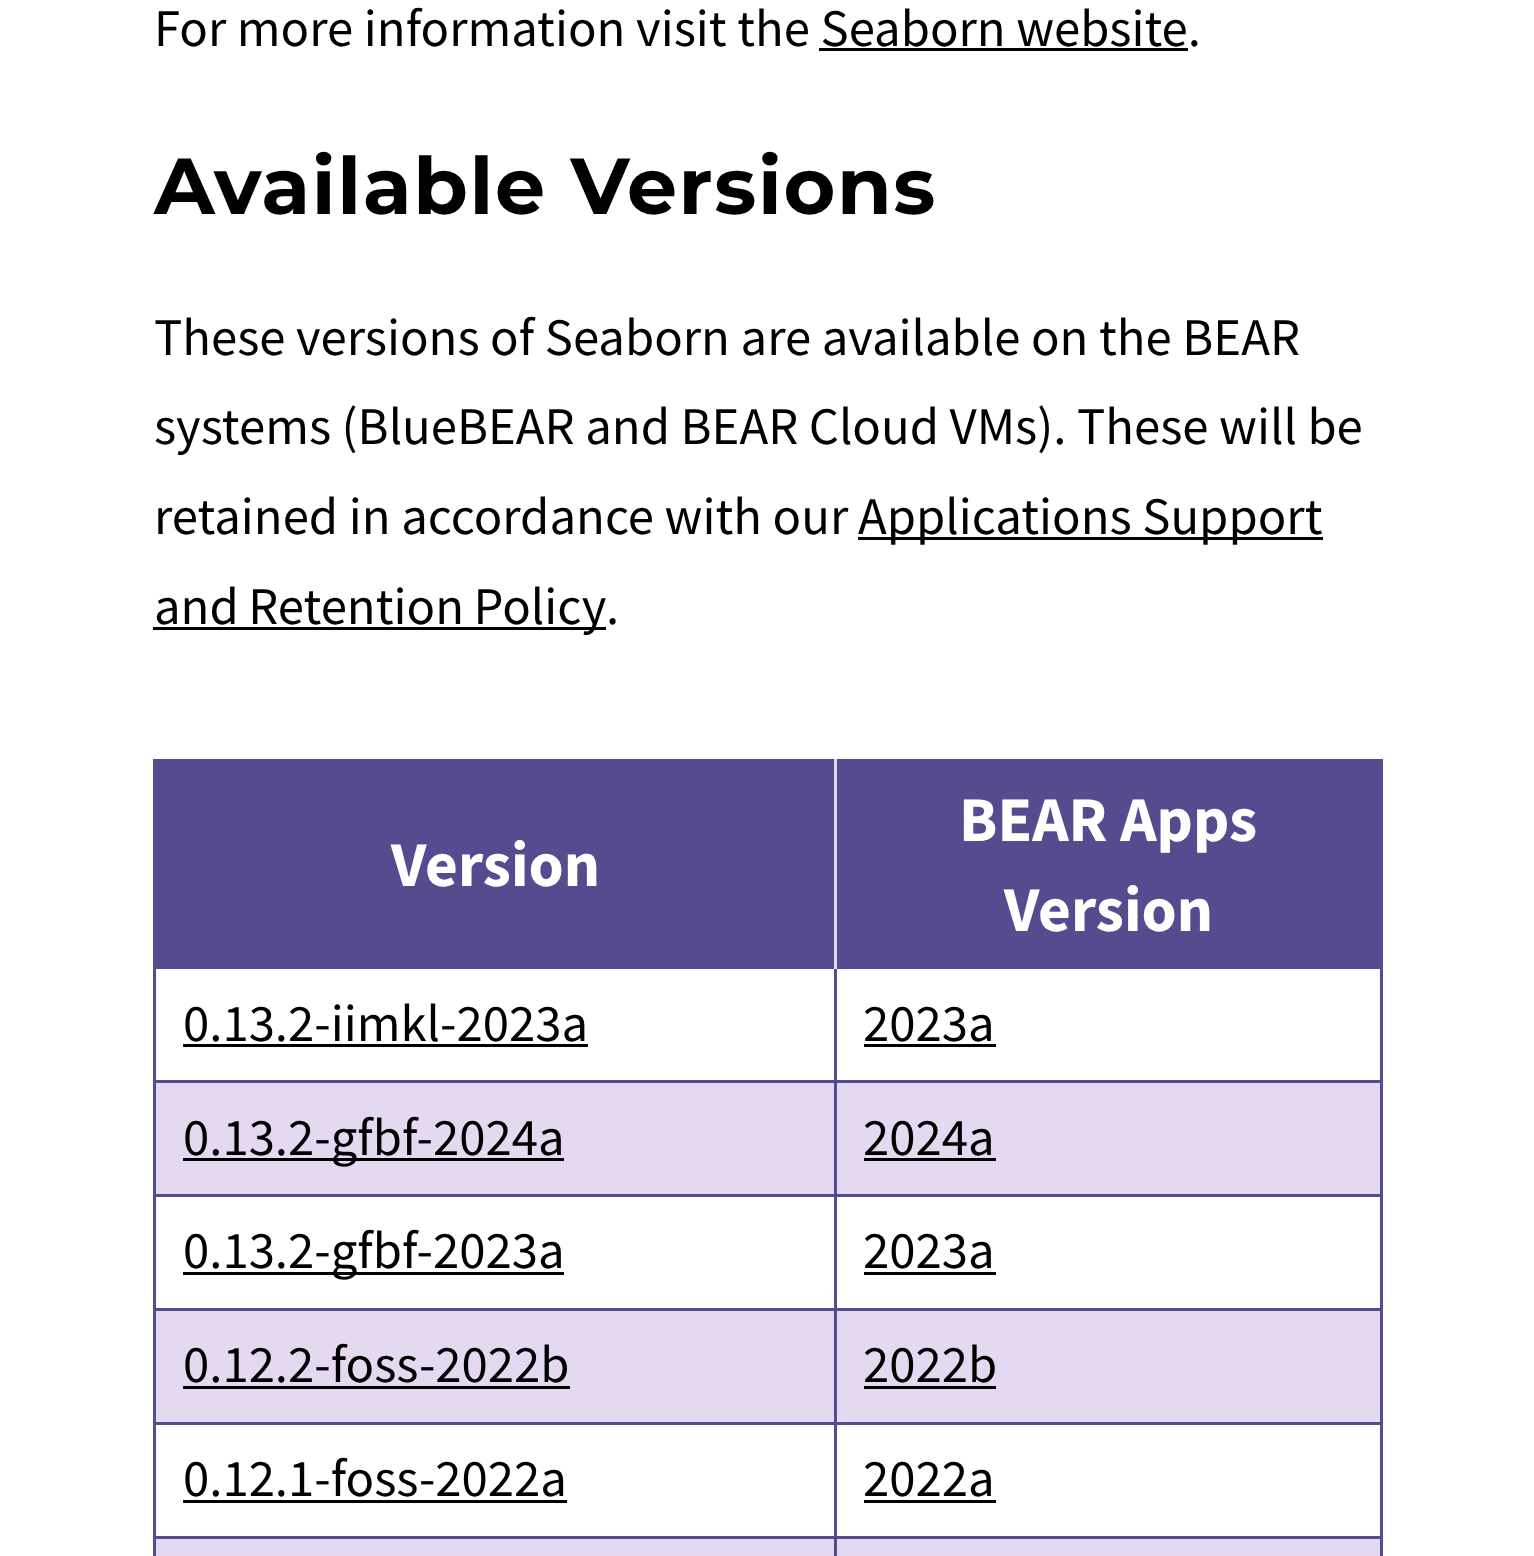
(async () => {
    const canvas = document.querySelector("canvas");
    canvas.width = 1534;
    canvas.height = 1556;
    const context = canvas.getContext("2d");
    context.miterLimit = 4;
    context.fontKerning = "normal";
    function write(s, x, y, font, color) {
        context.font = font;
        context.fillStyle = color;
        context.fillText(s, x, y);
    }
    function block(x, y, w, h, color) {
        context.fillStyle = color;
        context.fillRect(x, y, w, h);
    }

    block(0, 0, 1534, 1556, "rgb(255, 255, 255)");
    write("For more information visit the Seaborn website.", 154, 46, "52.8px Source Sans Pro", "rgb(0, 0, 0)");
    block(819, 48, 369, 3, "rgb(0, 0, 0)");
    context.letterSpacing = "1.6px";
    write("Available Versions", 154, 214, "bold 79.25px Montserrat", "rgb(0, 0, 0)");
    context.letterSpacing = "0px";
    write("These versions of Seaborn are available on the BEAR", 154, 355, "52.8px Source Sans Pro", "rgb(0, 0, 0)");
    write("systems (BlueBEAR and BEAR Cloud VMs). These will be", 154, 444, "52.8px Source Sans Pro", "rgb(0, 0, 0)");
    write("retained in accordance with our", 154, 534, "52.8px Source Sans Pro", "rgb(0, 0, 0)");
    block(858, 537, 465, 3, "rgb(0, 0, 0)");
    write("Applications Support", 858, 534, "52.8px Source Sans Pro", "rgb(0, 0, 0)");
    block(153, 627, 453, 3, "rgb(0, 0, 0)");
    context.wordSpacing = "-1px";
    write("and Retention Policy", 154, 624, "52.8px Source Sans Pro", "rgb(0, 0, 0)");
    context.wordSpacing = "0px";
    write(".", 606, 624, "52.8px Source Sans Pro", "rgb(0, 0, 0)");
    block(153, 759, 1230, 3, "rgb(87, 75, 144)");
    block(1380, 759, 3, 797, "rgb(87, 75, 144)");
    block(153, 759, 3, 797, "rgb(87, 75, 144)");
    block(156, 762, 678, 207, "rgb(87, 75, 144)");
    write("Version", 391, 886, "bold 63.5px Source Sans Pro", "rgb(255, 255, 255)");
    block(837, 762, 543, 207, "rgb(87, 75, 144)");
    block(834, 1080, 549, 3, "rgb(87, 75, 144)");
    block(156, 1083, 1224, 111, "rgb(229, 217, 242)");
    block(834, 1194, 549, 3, "rgb(87, 75, 144)");
    block(834, 1308, 549, 3, "rgb(87, 75, 144)");
    block(156, 1311, 1224, 111, "rgb(229, 217, 242)");
    block(834, 1422, 549, 3, "rgb(87, 75, 144)");
    block(834, 1536, 549, 3, "rgb(87, 75, 144)");
    block(156, 1539, 1224, 17, "rgb(229, 217, 242)");
    block(834, 1536, 3, 20, "rgb(87, 75, 144)");
    block(153, 1536, 684, 3, "rgb(87, 75, 144)");
    block(834, 1422, 3, 117, "rgb(87, 75, 144)");
    block(153, 1422, 684, 3, "rgb(87, 75, 144)");
    block(834, 1308, 3, 117, "rgb(87, 75, 144)");
    block(153, 1308, 684, 3, "rgb(87, 75, 144)");
    block(834, 1194, 3, 117, "rgb(87, 75, 144)");
    block(153, 1194, 684, 3, "rgb(87, 75, 144)");
    block(834, 1080, 3, 117, "rgb(87, 75, 144)");
    block(153, 1080, 684, 3, "rgb(87, 75, 144)");
    block(834, 966, 3, 117, "rgb(87, 75, 144)");
    block(834, 759, 3, 210, "rgb(229, 217, 242)");
    write("BEAR Apps", 959, 841, "bold 63.5px Source Sans Pro", "rgb(255, 255, 255)");
    write("Version", 1004, 931, "bold 63.5px Source Sans Pro", "rgb(255, 255, 255)");
    write("0.13.2-iimkl-2023a", 183, 1041, "52.8px Source Sans Pro", "rgb(0, 0, 0)");
    block(183, 1044, 405, 3, "rgb(0, 0, 0)");
    write("2023a", 863, 1041, "52.8px Source Sans Pro", "rgb(0, 0, 0)");
    block(864, 1044, 132, 3, "rgb(0, 0, 0)");
    block(183, 1158, 381, 3, "rgb(0, 0, 0)");
    write("0.13.2-gfbf-2024a", 183, 1155, "52.8px Source Sans Pro", "rgb(0, 0, 0)");
    write("2024a", 863, 1155, "52.8px Source Sans Pro", "rgb(0, 0, 0)");
    block(864, 1158, 132, 3, "rgb(0, 0, 0)");
    block(183, 1272, 381, 3, "rgb(0, 0, 0)");
    write("0.13.2-gfbf-2023a", 183, 1268, "52.8px Source Sans Pro", "rgb(0, 0, 0)");
    write("2023a", 863, 1268, "52.8px Source Sans Pro", "rgb(0, 0, 0)");
    block(864, 1272, 132, 3, "rgb(0, 0, 0)");
    write("0.12.2-foss-2022b", 183, 1382, "52.8px Source Sans Pro", "rgb(0, 0, 0)");
    block(183, 1386, 387, 3, "rgb(0, 0, 0)");
    write("2022b", 863, 1382, "52.8px Source Sans Pro", "rgb(0, 0, 0)");
    block(864, 1386, 132, 3, "rgb(0, 0, 0)");
    write("0.12.1-foss-2022a", 183, 1496, "52.8px Source Sans Pro", "rgb(0, 0, 0)");
    block(183, 1500, 384, 3, "rgb(0, 0, 0)");
    write("2022a", 863, 1496, "52.8px Source Sans Pro", "rgb(0, 0, 0)");
    block(864, 1500, 132, 3, "rgb(0, 0, 0)");
})();
